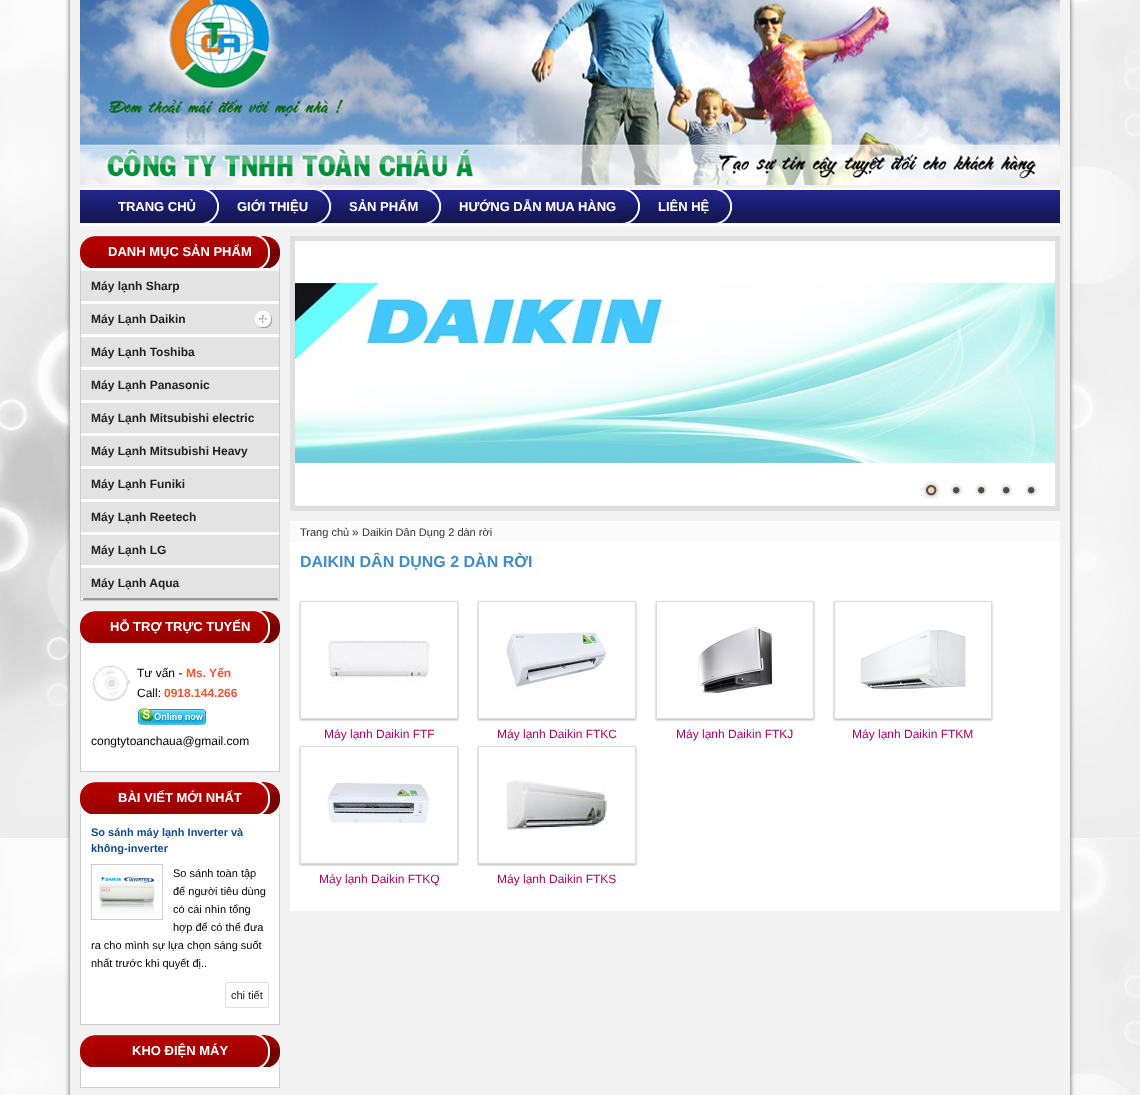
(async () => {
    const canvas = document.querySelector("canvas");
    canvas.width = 1140;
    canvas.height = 1095;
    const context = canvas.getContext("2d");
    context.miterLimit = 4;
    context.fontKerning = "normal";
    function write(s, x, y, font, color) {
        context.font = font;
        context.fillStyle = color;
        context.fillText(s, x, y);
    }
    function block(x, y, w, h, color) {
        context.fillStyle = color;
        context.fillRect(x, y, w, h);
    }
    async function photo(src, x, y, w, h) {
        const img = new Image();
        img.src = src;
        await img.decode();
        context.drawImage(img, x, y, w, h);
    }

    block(0, 0, 1140, 1095, "rgb(255, 255, 255)");
    await photo("media/1.png", 0, 0, 1140, 1095);
    context.fillStyle = "rgb(85, 85, 85)";
    context.filter = "blur(2.5px)";
    context.beginPath();
    context.rect(70, -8, 1000, 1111);
    context.fill();
    context.filter = "none";
    block(70, 0, 1000, 1095, "rgb(242, 242, 242)");
    await photo("media/2.png", 80, 0, 980, 185);
    await photo("media/3.png", 80, 190, 980, 33);
    block(80, 188, 980, 2, "rgb(255, 255, 255)");
    block(80, 224, 980, 2, "rgb(255, 255, 255)");
    await photo("media/4.png", 196, 190, 26, 33);
    write("TRANG CHỦ", 118, 211, "bold 13px Liberation Sans", "rgb(255, 255, 255)");
    await photo("media/5.png", 308, 190, 26, 33);
    write("GIỚI THIỆU", 237, 211, "bold 13px Liberation Sans", "rgb(255, 255, 255)");
    await photo("media/6.png", 418, 190, 26, 33);
    write("SẢN PHẨM", 349, 211, "bold 13px Liberation Sans", "rgb(255, 255, 255)");
    await photo("media/7.png", 617, 190, 26, 33);
    write("HƯỚNG DẪN MUA HÀNG", 459, 211, "bold 13px Liberation Sans", "rgb(255, 255, 255)");
    await photo("media/8.png", 709, 190, 26, 33);
    write("LIÊN HỆ", 658, 211, "bold 13px Liberation Sans", "rgb(255, 255, 255)");
    await photo("media/9.png", 80, 236, 200, 32);
    write("DANH MỤC SẢN PHẨM", 108, 256, "bold 13px Liberation Sans", "rgb(255, 255, 255)");
    block(81, 598, 198, 2, "rgb(255, 255, 255)");
    block(279, 268, 1, 333, "rgb(204, 204, 204)");
    block(80, 600, 200, 1, "rgb(204, 204, 204)");
    block(80, 268, 1, 333, "rgb(204, 204, 204)");
    block(83, 598, 195, 2, "rgb(153, 153, 153)");
    block(81, 271, 198, 30, "rgb(227, 227, 227)");
    block(81, 268, 198, 3, "rgb(255, 255, 255)");
    write("Máy lạnh Sharp", 91, 290, "bold 12px Liberation Sans", "rgb(34, 34, 34)");
    block(81, 304, 198, 30, "rgb(227, 227, 227)");
    block(81, 301, 198, 3, "rgb(255, 255, 255)");
    await photo("media/10.png", 255, 311, 17, 17);
    write("Máy Lạnh Daikin", 91, 323, "bold 12px Liberation Sans", "rgb(34, 34, 34)");
    block(81, 337, 198, 30, "rgb(227, 227, 227)");
    block(81, 334, 198, 3, "rgb(255, 255, 255)");
    write("Máy Lạnh Toshiba", 91, 356, "bold 12px Liberation Sans", "rgb(34, 34, 34)");
    block(81, 370, 198, 30, "rgb(227, 227, 227)");
    block(81, 367, 198, 3, "rgb(255, 255, 255)");
    write("Máy Lạnh Panasonic", 91, 389, "bold 12px Liberation Sans", "rgb(34, 34, 34)");
    block(81, 403, 198, 30, "rgb(227, 227, 227)");
    block(81, 400, 198, 3, "rgb(255, 255, 255)");
    write("Máy Lạnh Mitsubishi electric", 91, 422, "bold 12px Liberation Sans", "rgb(34, 34, 34)");
    block(81, 436, 198, 30, "rgb(227, 227, 227)");
    block(81, 433, 198, 3, "rgb(255, 255, 255)");
    write("Máy Lạnh Mitsubishi Heavy", 91, 455, "bold 12px Liberation Sans", "rgb(34, 34, 34)");
    block(81, 469, 198, 30, "rgb(227, 227, 227)");
    block(81, 466, 198, 3, "rgb(255, 255, 255)");
    write("Máy Lạnh Funiki", 91, 488, "bold 12px Liberation Sans", "rgb(34, 34, 34)");
    block(81, 502, 198, 30, "rgb(227, 227, 227)");
    block(81, 499, 198, 3, "rgb(255, 255, 255)");
    write("Máy Lạnh Reetech", 91, 521, "bold 12px Liberation Sans", "rgb(34, 34, 34)");
    block(81, 535, 198, 30, "rgb(227, 227, 227)");
    block(81, 532, 198, 3, "rgb(255, 255, 255)");
    write("Máy Lạnh LG", 91, 554, "bold 12px Liberation Sans", "rgb(34, 34, 34)");
    block(81, 568, 198, 30, "rgb(227, 227, 227)");
    block(81, 565, 198, 3, "rgb(255, 255, 255)");
    write("Máy Lạnh Aqua", 91, 587, "bold 12px Liberation Sans", "rgb(34, 34, 34)");
    await photo("media/9.png", 80, 611, 200, 32);
    write("HỖ TRỢ TRỰC TUYẾN", 110, 631, "bold 13px Liberation Sans", "rgb(255, 255, 255)");
    block(81, 643, 198, 128, "rgb(255, 255, 255)");
    block(279, 643, 1, 129, "rgb(204, 204, 204)");
    block(80, 771, 200, 1, "rgb(204, 204, 204)");
    block(80, 643, 1, 129, "rgb(204, 204, 204)");
    await photo("media/11.png", 92, 665, 39, 37);
    await photo("media/12.png", 97, 669, 24, 28);
    write("Tư vấn -", 137, 677, "12px Liberation Sans", "rgb(0, 0, 0)");
    write("Ms. Yến", 186, 677, "bold 12px Liberation Sans", "rgb(245, 84, 56)");
    write("Call:", 137, 697, "12px Liberation Sans", "rgb(0, 0, 0)");
    write("0918.144.266", 164, 697, "bold 12px Liberation Sans", "rgb(245, 84, 56)");
    await photo("media/13.png", 138, 708, 68, 17);
    write("congtytoanchaua@gmail.com", 91, 745, "12px Liberation Sans", "rgb(0, 0, 0)");
    await photo("media/9.png", 80, 782, 200, 32);
    write("BÀI VIẾT MỚI NHẤT", 118, 802, "bold 13px Liberation Sans", "rgb(255, 255, 255)");
    block(81, 814, 198, 210, "rgb(255, 255, 255)");
    block(279, 814, 1, 211, "rgb(204, 204, 204)");
    block(80, 1024, 200, 1, "rgb(204, 204, 204)");
    block(80, 814, 1, 211, "rgb(204, 204, 204)");
    write("So sánh máy lạnh Inverter và", 91, 836, "bold 11px Liberation Sans", "rgb(19, 74, 141)");
    write("không-inverter", 91, 852, "bold 11px Liberation Sans", "rgb(19, 74, 141)");
    context.strokeStyle = "rgb(204, 204, 204)";
    context.strokeRect(91.5, 864.5, 71, 55);
    await photo("media/14.png", 99, 876, 56, 37);
    write("So sánh toàn tập", 173, 877, "11px Liberation Sans", "rgb(0, 0, 0)");
    write("để người tiêu dùng", 173, 895, "11px Liberation Sans", "rgb(0, 0, 0)");
    write("có cái nhìn tổng", 173, 913, "11px Liberation Sans", "rgb(0, 0, 0)");
    write("hợp để có thể đưa", 173, 931, "11px Liberation Sans", "rgb(0, 0, 0)");
    write("ra cho mình sự lựa chọn sáng suốt", 91, 949, "11px Liberation Sans", "rgb(0, 0, 0)");
    write("nhất trước khi quyết đị..", 91, 967, "11px Liberation Sans", "rgb(0, 0, 0)");
    context.beginPath();
    context.roundRect(225.5, 982.5, 43, 25, 1.5);
    context.strokeStyle = "rgb(223, 223, 223)";
    context.stroke();
    write("chi tiết", 231, 999, "11px Liberation Sans", "rgb(34, 34, 34)");
    await photo("media/9.png", 80, 1035, 200, 32);
    write("KHO ĐIỆN MÁY", 132, 1055, "bold 13px Liberation Sans", "rgb(255, 255, 255)");
    block(81, 1067, 198, 20, "rgb(255, 255, 255)");
    block(279, 1067, 1, 21, "rgb(204, 204, 204)");
    block(80, 1087, 200, 1, "rgb(204, 204, 204)");
    block(80, 1067, 1, 21, "rgb(204, 204, 204)");
    context.lineWidth = 5;
    context.strokeRect(292.5, 238.5, 765, 270);
    await photo("media/15.png", 295, 241, 760, 265);
    await photo("media/16.png", 922, 481, 18, 18);
    await photo("media/17.png", 950, 484, 12, 12);
    await photo("media/17.png", 975, 484, 12, 12);
    await photo("media/17.png", 1000, 484, 12, 12);
    await photo("media/17.png", 1025, 484, 12, 12);
    block(290, 521, 770, 22, "rgb(250, 250, 250)");
    write("Trang chủ", 300, 536, "11px Liberation Sans", "rgb(51, 51, 51)");
    write("»", 352, 536, "12px Liberation Sans", "rgb(51, 51, 51)");
    write("Daikin Dân Dụng 2 dàn rời", 362, 536, "11px Liberation Sans", "rgb(51, 51, 51)");
    block(290, 543, 770, 368, "rgb(255, 255, 255)");
    write("DAIKIN DÂN DỤNG 2 DÀN RỜI", 300, 567, "bold 16px Liberation Sans", "rgb(64, 140, 200)");
    context.save();
    context.beginPath();
    context.moveTo(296, 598);
    context.lineTo(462, 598);
    context.lineTo(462, 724);
    context.lineTo(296, 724);
    context.closePath();
    context.moveTo(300, 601);
    context.lineTo(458, 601);
    context.lineTo(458, 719);
    context.lineTo(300, 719);
    context.closePath();
    context.clip("evenodd");
    context.fillStyle = "rgba(0, 0, 0, 0.3)";
    context.filter = "blur(1px)";
    context.beginPath();
    context.rect(300, 602, 158, 118);
    context.fill();
    context.filter = "none";
    context.restore();
    context.strokeStyle = "rgb(219, 222, 225)";
    context.lineWidth = 1;
    context.strokeRect(300.5, 601.5, 157, 117);
    await photo("media/18.png", 328, 640, 101, 45);
    write("Máy lạnh Daikin FTF", 324, 738, "12px Liberation Sans", "rgb(169, 0, 103)");
    context.save();
    context.beginPath();
    context.moveTo(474, 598);
    context.lineTo(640, 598);
    context.lineTo(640, 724);
    context.lineTo(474, 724);
    context.closePath();
    context.moveTo(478, 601);
    context.lineTo(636, 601);
    context.lineTo(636, 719);
    context.lineTo(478, 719);
    context.closePath();
    context.clip("evenodd");
    context.fillStyle = "rgba(0, 0, 0, 0.3)";
    context.filter = "blur(1px)";
    context.beginPath();
    context.rect(478, 602, 158, 118);
    context.fill();
    context.filter = "none";
    context.restore();
    context.strokeRect(478.5, 601.5, 157, 117);
    await photo("media/19.png", 506, 621, 104, 70);
    write("Máy lạnh Daikin FTKC", 497, 738, "12px Liberation Sans", "rgb(169, 0, 103)");
    context.save();
    context.beginPath();
    context.moveTo(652, 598);
    context.lineTo(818, 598);
    context.lineTo(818, 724);
    context.lineTo(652, 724);
    context.closePath();
    context.moveTo(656, 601);
    context.lineTo(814, 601);
    context.lineTo(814, 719);
    context.lineTo(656, 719);
    context.closePath();
    context.clip("evenodd");
    context.fillStyle = "rgba(0, 0, 0, 0.3)";
    context.filter = "blur(1px)";
    context.beginPath();
    context.rect(656, 602, 158, 118);
    context.fill();
    context.filter = "none";
    context.restore();
    context.strokeRect(656.5, 601.5, 157, 117);
    await photo("media/20.png", 697, 626, 76, 68);
    write("Máy lạnh Daikin FTKJ", 676, 738, "12px Liberation Sans", "rgb(169, 0, 103)");
    context.save();
    context.beginPath();
    context.moveTo(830, 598);
    context.lineTo(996, 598);
    context.lineTo(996, 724);
    context.lineTo(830, 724);
    context.closePath();
    context.moveTo(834, 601);
    context.lineTo(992, 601);
    context.lineTo(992, 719);
    context.lineTo(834, 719);
    context.closePath();
    context.clip("evenodd");
    context.fillStyle = "rgba(0, 0, 0, 0.3)";
    context.filter = "blur(1px)";
    context.beginPath();
    context.rect(834, 602, 158, 118);
    context.fill();
    context.filter = "none";
    context.restore();
    context.strokeRect(834.5, 601.5, 157, 117);
    await photo("media/21.png", 860, 629, 106, 61);
    write("Máy lạnh Daikin FTKM", 852, 738, "12px Liberation Sans", "rgb(169, 0, 103)");
    context.save();
    context.beginPath();
    context.moveTo(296, 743);
    context.lineTo(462, 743);
    context.lineTo(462, 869);
    context.lineTo(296, 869);
    context.closePath();
    context.moveTo(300, 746);
    context.lineTo(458, 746);
    context.lineTo(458, 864);
    context.lineTo(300, 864);
    context.closePath();
    context.clip("evenodd");
    context.fillStyle = "rgba(0, 0, 0, 0.3)";
    context.filter = "blur(1px)";
    context.beginPath();
    context.rect(300, 747, 158, 118);
    context.fill();
    context.filter = "none";
    context.restore();
    context.strokeRect(300.5, 746.5, 157, 117);
    await photo("media/22.png", 327, 782, 105, 43);
    write("Máy lạnh Daikin FTKQ", 319, 883, "12px Liberation Sans", "rgb(169, 0, 103)");
    context.save();
    context.beginPath();
    context.moveTo(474, 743);
    context.lineTo(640, 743);
    context.lineTo(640, 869);
    context.lineTo(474, 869);
    context.closePath();
    context.moveTo(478, 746);
    context.lineTo(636, 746);
    context.lineTo(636, 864);
    context.lineTo(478, 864);
    context.closePath();
    context.clip("evenodd");
    context.fillStyle = "rgba(0, 0, 0, 0.3)";
    context.filter = "blur(1px)";
    context.beginPath();
    context.rect(478, 747, 158, 118);
    context.fill();
    context.filter = "none";
    context.restore();
    context.strokeRect(478.5, 746.5, 157, 117);
    await photo("media/23.png", 506, 780, 104, 50);
    write("Máy lạnh Daikin FTKS", 497, 883, "12px Liberation Sans", "rgb(169, 0, 103)");
})();
